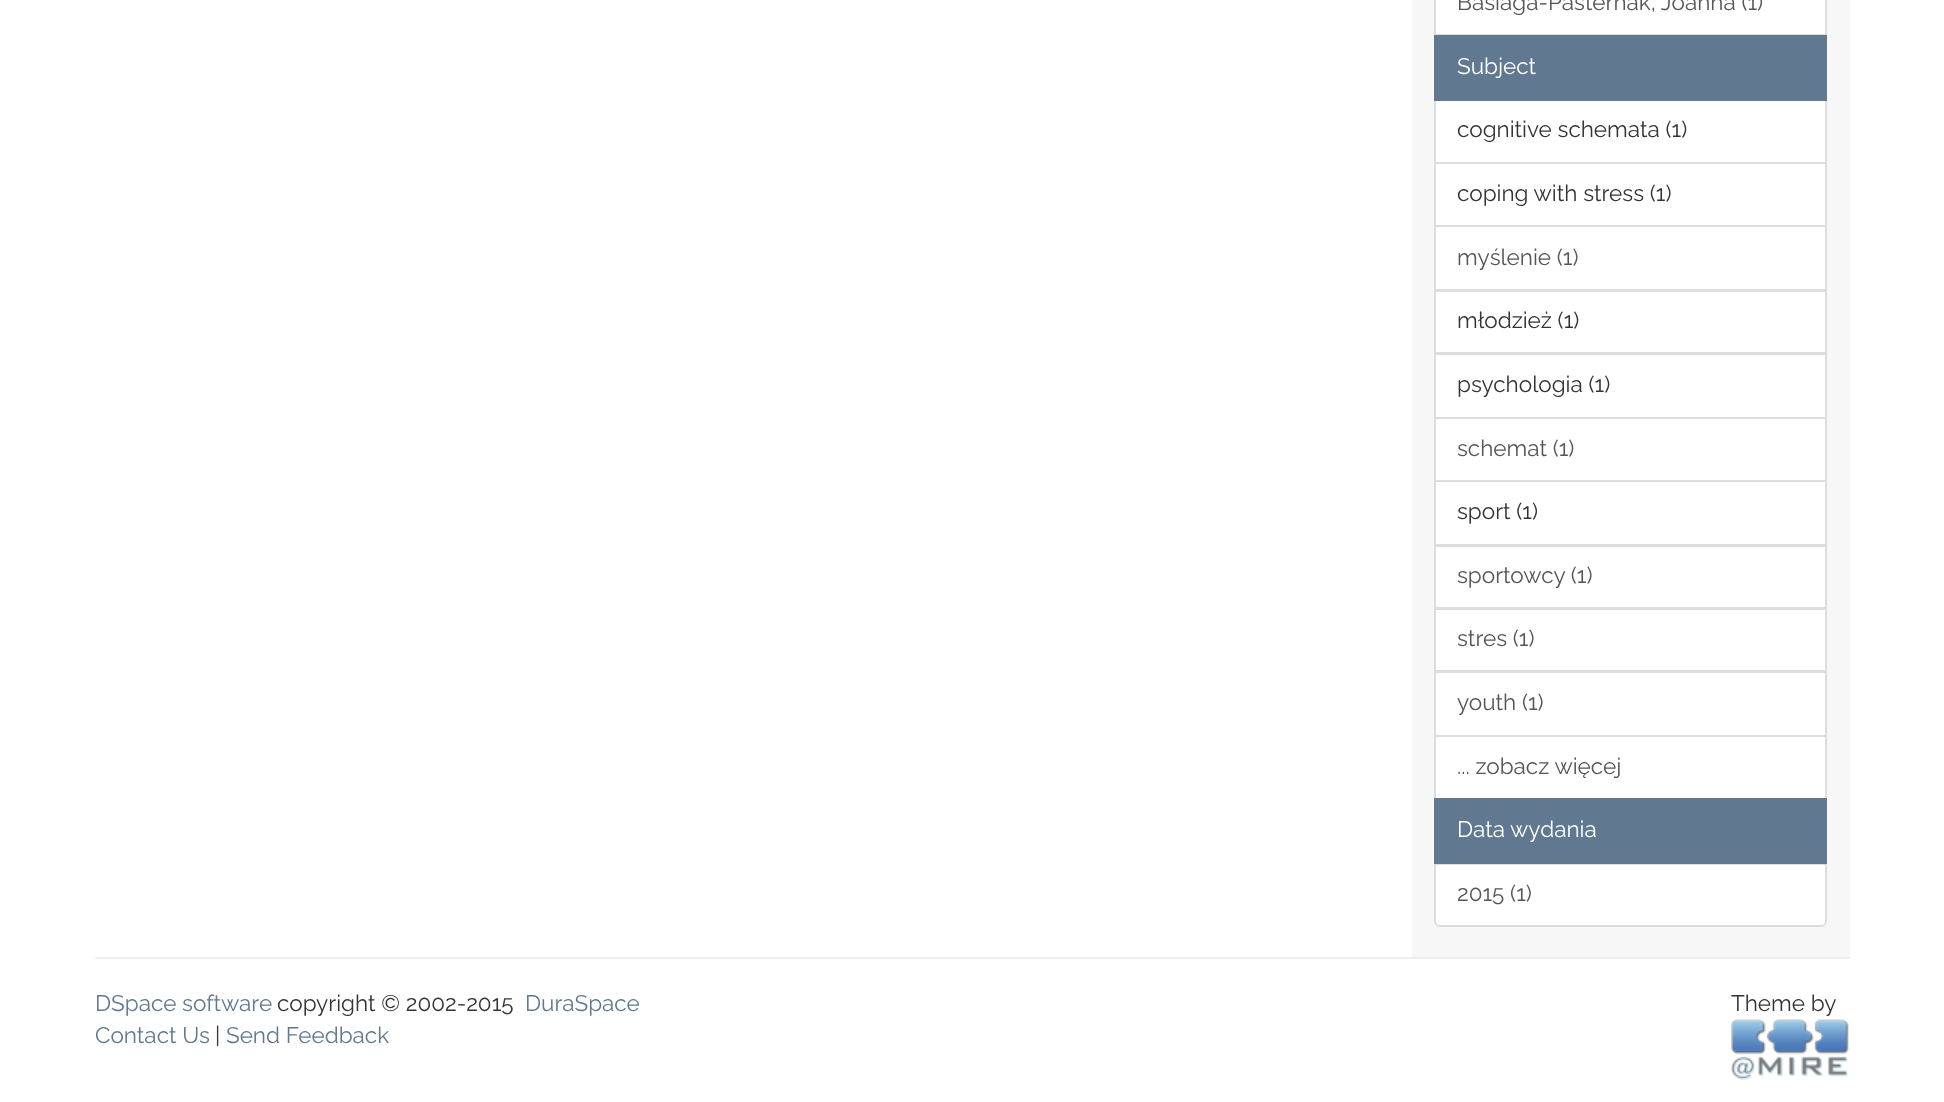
(async () => {
    const canvas = document.querySelector("canvas");
    canvas.width = 1944;
    canvas.height = 1102;
    const context = canvas.getContext("2d");
    context.miterLimit = 4;
    context.fontKerning = "normal";
    function write(s, x, y, font, color) {
        context.font = font;
        context.fillStyle = color;
        context.fillText(s, x, y);
    }
    function block(x, y, w, h, color) {
        context.fillStyle = color;
        context.fillRect(x, y, w, h);
    }
    async function photo(src, x, y, w, h) {
        const img = new Image();
        img.src = src;
        await img.decode();
        context.drawImage(img, x, y, w, h);
    }

    block(0, 0, 1944, 1102, "rgb(255, 255, 255)");
    block(1412, 0, 438, 957, "rgb(247, 247, 247)");
    context.fillStyle = "rgb(255, 255, 255)";
    context.beginPath();
    context.rect(1435, -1, 391, 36);
    context.fill();
    context.strokeStyle = "rgb(221, 221, 221)";
    context.lineWidth = 2;
    context.stroke();
    write("Basiaga-Pasternak, Joanna (1)", 1457, 10, "22.5px Raleway", "rgb(85, 85, 85)");
    context.fillStyle = "rgb(255, 255, 255)";
    context.beginPath();
    context.rect(1435, 100, 391, 63);
    context.fill();
    context.stroke();
    block(1434, 35, 393, 66, "rgb(96, 120, 144)");
    write("Subject", 1457, 74, "22.5px Raleway", "rgb(255, 255, 255)");
    write("cognitive schemata (1)", 1457, 137, "22.5px Raleway", "rgb(51, 51, 51)");
    context.fillStyle = "rgb(255, 255, 255)";
    context.beginPath();
    context.rect(1435, 163, 391, 63);
    context.fill();
    context.stroke();
    write("coping with stress (1)", 1457, 201, "22.5px Raleway", "rgb(51, 51, 51)");
    context.fillStyle = "rgb(255, 255, 255)";
    context.beginPath();
    context.rect(1435, 226, 391, 64);
    context.fill();
    context.stroke();
    write("myślenie (1)", 1457, 265, "22.5px Raleway", "rgb(85, 85, 85)");
    context.fillStyle = "rgb(255, 255, 255)";
    context.beginPath();
    context.rect(1435, 291, 391, 62);
    context.fill();
    context.stroke();
    write("młodzież (1)", 1457, 328, "22.5px Raleway", "rgb(51, 51, 51)");
    context.fillStyle = "rgb(255, 255, 255)";
    context.beginPath();
    context.rect(1435, 354, 391, 64);
    context.fill();
    context.stroke();
    write("psychologia (1)", 1457, 392, "22.5px Raleway", "rgb(51, 51, 51)");
    context.fillStyle = "rgb(255, 255, 255)";
    context.beginPath();
    context.rect(1435, 418, 391, 63);
    context.fill();
    context.stroke();
    write("schemat (1)", 1457, 456, "22.5px Raleway", "rgb(85, 85, 85)");
    context.fillStyle = "rgb(255, 255, 255)";
    context.beginPath();
    context.rect(1435, 481, 391, 64);
    context.fill();
    context.stroke();
    write("sport (1)", 1457, 519, "22.5px Raleway", "rgb(51, 51, 51)");
    context.fillStyle = "rgb(255, 255, 255)";
    context.beginPath();
    context.rect(1435, 546, 391, 62);
    context.fill();
    context.stroke();
    write("sportowcy (1)", 1457, 583, "22.5px Raleway", "rgb(85, 85, 85)");
    context.fillStyle = "rgb(255, 255, 255)";
    context.beginPath();
    context.rect(1435, 609, 391, 62);
    context.fill();
    context.stroke();
    write("stres (1)", 1457, 646, "22.5px Raleway", "rgb(85, 85, 85)");
    context.fillStyle = "rgb(255, 255, 255)";
    context.beginPath();
    context.rect(1435, 672, 391, 64);
    context.fill();
    context.stroke();
    write("youth (1)", 1457, 710, "22.5px Raleway", "rgb(85, 85, 85)");
    context.fillStyle = "rgb(255, 255, 255)";
    context.beginPath();
    context.rect(1435, 736, 391, 63);
    context.fill();
    context.stroke();
    write("... zobacz więcej", 1457, 774, "22.5px Raleway", "rgb(85, 85, 85)");
    context.fillStyle = "rgb(255, 255, 255)";
    context.beginPath();
    context.roundRect(1435, 864, 391, 62, [0, 0, 5, 5]);
    context.fill();
    context.stroke();
    block(1434, 798, 393, 66, "rgb(96, 120, 144)");
    write("Data wydania", 1457, 837, "22.5px Raleway", "rgb(255, 255, 255)");
    write("2015 (1)", 1457, 901, "22.5px Raleway", "rgb(85, 85, 85)");
    block(95, 957, 1755, 2, "rgb(238, 238, 238)");
    write("DSpace software", 95, 1011, "22.5px Raleway", "rgb(96, 120, 144)");
    write("copyright © 2002-2015", 277, 1011, "22.5px Raleway", "rgb(51, 51, 51)");
    write("DuraSpace", 525, 1011, "22.5px Raleway", "rgb(96, 120, 144)");
    write("Contact Us", 95, 1043, "22.5px Raleway", "rgb(96, 120, 144)");
    write("|", 215, 1043, "22.5px Raleway", "rgb(51, 51, 51)");
    write("Send Feedback", 226, 1043, "22.5px Raleway", "rgb(96, 120, 144)");
    write("Theme by", 1731, 1011, "22.5px Raleway", "rgb(51, 51, 51)");
    await photo("media/1.png", 1731, 1019, 118, 62);
})();
